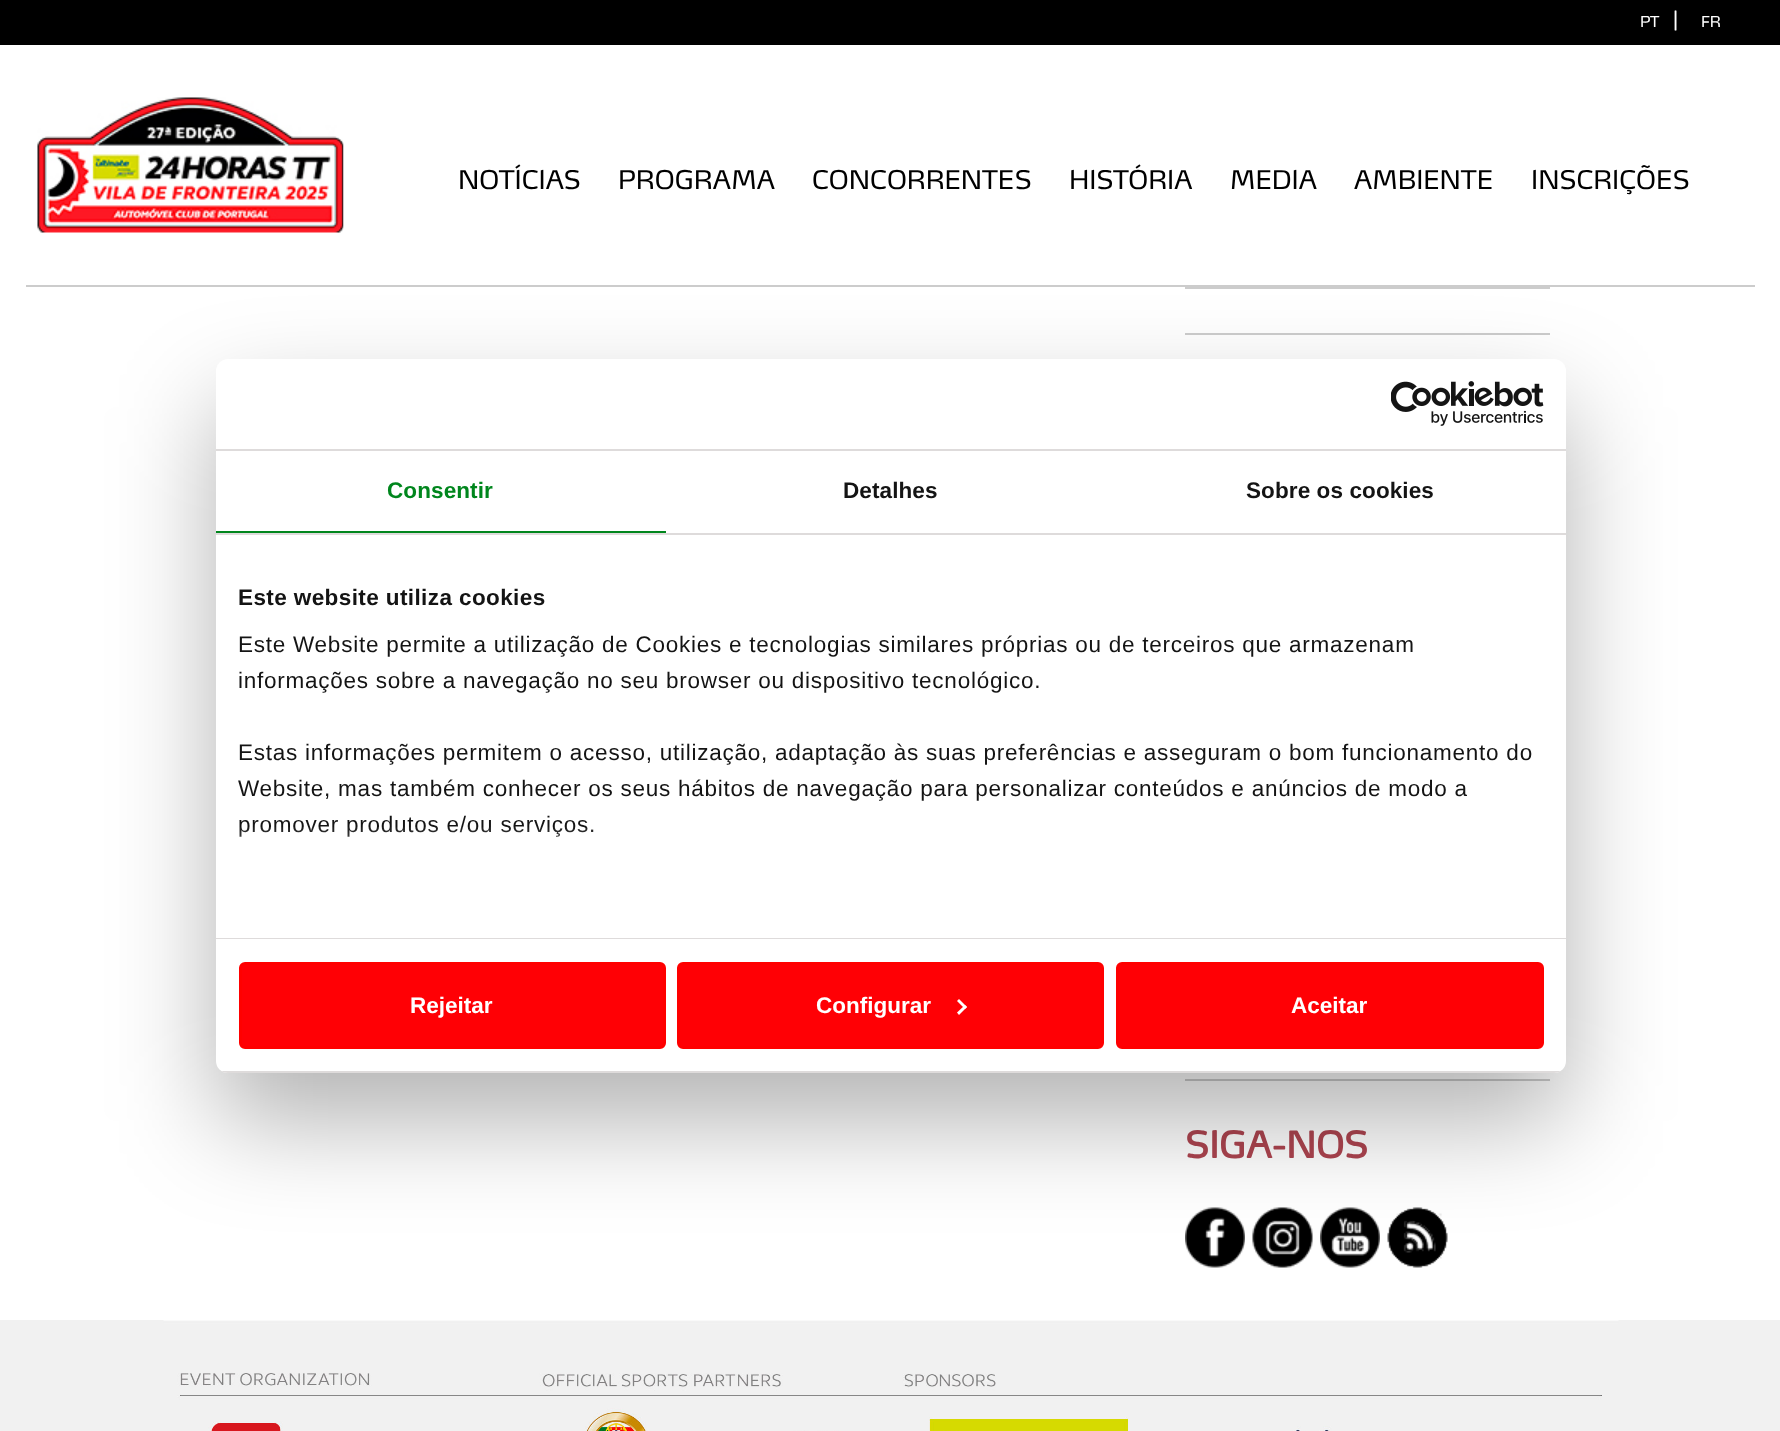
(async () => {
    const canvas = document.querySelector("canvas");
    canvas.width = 1780;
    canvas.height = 1431;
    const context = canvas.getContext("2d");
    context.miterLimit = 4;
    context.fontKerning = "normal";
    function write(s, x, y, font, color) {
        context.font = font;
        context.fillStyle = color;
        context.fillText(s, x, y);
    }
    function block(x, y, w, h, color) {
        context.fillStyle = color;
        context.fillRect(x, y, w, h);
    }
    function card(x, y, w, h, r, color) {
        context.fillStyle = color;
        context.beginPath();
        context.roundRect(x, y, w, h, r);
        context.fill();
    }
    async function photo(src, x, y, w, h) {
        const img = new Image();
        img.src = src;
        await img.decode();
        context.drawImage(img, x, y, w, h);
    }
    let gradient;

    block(0, 0, 1780, 1431, "rgb(255, 255, 255)");
    block(0, 0, 1780, 45, "rgb(0, 0, 0)");
    write("PT", 1640, 27, "15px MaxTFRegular", "rgb(255, 255, 255)");
    write("|", 1673, 27, "21px MaxTFRegular", "rgb(255, 255, 255)");
    write("FR", 1701, 27, "15px MaxTFRegular", "rgb(255, 255, 255)");
    block(26, 285, 1729, 2, "rgb(204, 204, 204)");
    await photo("media/1.png", 37, 97, 307, 136);
    write("NOTÍCIAS", 458, 189, "25.5px MaxTFRegular", "rgb(0, 0, 0)");
    write("PROGRAMA", 618, 189, "25.5px MaxTFRegular", "rgb(0, 0, 0)");
    write("CONCORRENTES", 812, 189, "25.5px MaxTFRegular", "rgb(0, 0, 0)");
    write("HISTÓRIA", 1069, 189, "25.5px MaxTFRegular", "rgb(0, 0, 0)");
    write("MEDIA", 1230, 189, "25.5px MaxTFRegular", "rgb(0, 0, 0)");
    write("AMBIENTE", 1354, 189, "25.5px MaxTFRegular", "rgb(0, 0, 0)");
    write("INSCRIÇÕES", 1531, 189, "25.5px MaxTFRegular", "rgb(0, 0, 0)");
    block(1185, 287, 365, 2, "rgb(204, 204, 204)");
    block(1185, 333, 365, 2, "rgb(204, 204, 204)");
    block(1185, 1079, 365, 2, "rgb(204, 204, 204)");
    write("SIGA-NOS", 1185, 1158, "bold 36px MaxTFRegular", "rgb(174, 69, 80)");
    await photo("media/2.png", 1185, 1207, 60, 61);
    await photo("media/3.png", 1252, 1207, 61, 61);
    await photo("media/4.png", 1320, 1207, 60, 61);
    await photo("media/5.png", 1387, 1207, 61, 61);
    block(0, 1320, 1780, 111, "rgb(241, 241, 241)");
    await photo("media/6.png", 163, 1320, 1456, 111);
    context.fillStyle = "rgba(0, 0, 0, 0.3)";
    context.filter = "blur(51px)";
    context.beginPath();
    context.roundRect(216, 407, 1350, 714, 12);
    context.fill();
    context.filter = "none";
    card(216, 359, 1350, 714, 12, "rgb(255, 255, 255)");
    block(216, 449, 1350, 2, "rgb(222, 219, 219)");
    await photo("media/7.png", 1391, 381, 153, 45);
    block(216, 533, 1350, 2, "rgb(222, 219, 219)");
    block(216, 531, 450, 2, "rgb(0, 134, 29)");
    context.letterSpacing = "0.1px";
    write("Consentir", 387, 498, "bold 22.5px Liberation Sans", "rgb(0, 134, 29)");
    write("Detalhes", 843, 498, "bold 22.5px Liberation Sans", "rgb(20, 20, 20)");
    write("Sobre os cookies", 1246, 498, "bold 22.5px Liberation Sans", "rgb(20, 20, 20)");
    block(216, 938, 1350, 1, "rgb(222, 219, 219)");
    context.letterSpacing = "0.4px";
    write("Este website utiliza cookies", 238, 605, "bold 22.5px Liberation Sans", "rgb(20, 20, 20)");
    context.letterSpacing = "0.75px";
    write("Este Website permite a utilização de Cookies e tecnologias similares próprias ou de terceiros que armazenam", 238, 652, "22.5px Liberation Sans", "rgb(20, 20, 20)");
    write("informações sobre a navegação no seu browser ou dispositivo tecnológico.", 238, 688, "22.5px Liberation Sans", "rgb(20, 20, 20)");
    write("Estas informações permitem o acesso, utilização, adaptação às suas preferências e asseguram o bom funcionamento do", 238, 760, "22.5px Liberation Sans", "rgb(20, 20, 20)");
    write("Website, mas também conhecer os seus hábitos de navegação para personalizar conteúdos e anúncios de modo a", 238, 796, "22.5px Liberation Sans", "rgb(20, 20, 20)");
    write("promover produtos e/ou serviços.", 238, 832, "22.5px Liberation Sans", "rgb(20, 20, 20)");
    gradient = context.createLinearGradient(881, 938, 881, 825);
    gradient.addColorStop(0, "rgb(255, 255, 255)");
    gradient.addColorStop(0.5, "rgba(255, 255, 255, 0.8)");
    gradient.addColorStop(1, "rgba(255, 255, 255, 0)");
    context.fillStyle = gradient;
    context.fillRect(239, 827, 354, 10);
    context.save();
    context.beginPath();
    context.roundRect(216, 359, 1350, 714, 12);
    context.clip();
    block(216, 1071, 1350, 2, "rgb(222, 219, 219)");
    context.restore();
    context.fillStyle = "rgb(255, 0, 5)";
    context.beginPath();
    context.roundRect(240.5, 963.5, 424, 84, 4.5);
    context.fill();
    context.strokeStyle = "rgb(255, 0, 0)";
    context.lineWidth = 3;
    context.stroke();
    context.letterSpacing = "0px";
    write("Rejeitar", 410, 1013, "bold 22.5px Liberation Sans", "rgb(255, 255, 255)");
    context.fillStyle = "rgb(255, 0, 5)";
    context.beginPath();
    context.roundRect(678.5, 963.5, 424, 84, 4.5);
    context.fill();
    context.stroke();
    write("Configurar", 816, 1013, "bold 22.5px Liberation Sans", "rgb(255, 255, 255)");
    context.beginPath();
    context.moveTo(959, 999);
    context.lineTo(967, 1007);
    context.lineTo(965, 1009);
    context.lineTo(957, 1001);
    context.closePath();
    context.fill();
    context.beginPath();
    context.moveTo(965, 1005);
    context.lineTo(967, 1007);
    context.lineTo(959, 1015);
    context.lineTo(957, 1012.5);
    context.closePath();
    context.fill();
    context.fillStyle = "rgb(255, 0, 5)";
    context.beginPath();
    context.roundRect(1117.5, 963.5, 425, 84, 4.5);
    context.fill();
    context.stroke();
    write("Aceitar", 1291, 1013, "bold 22.5px Liberation Sans", "rgb(255, 255, 255)");
})();
